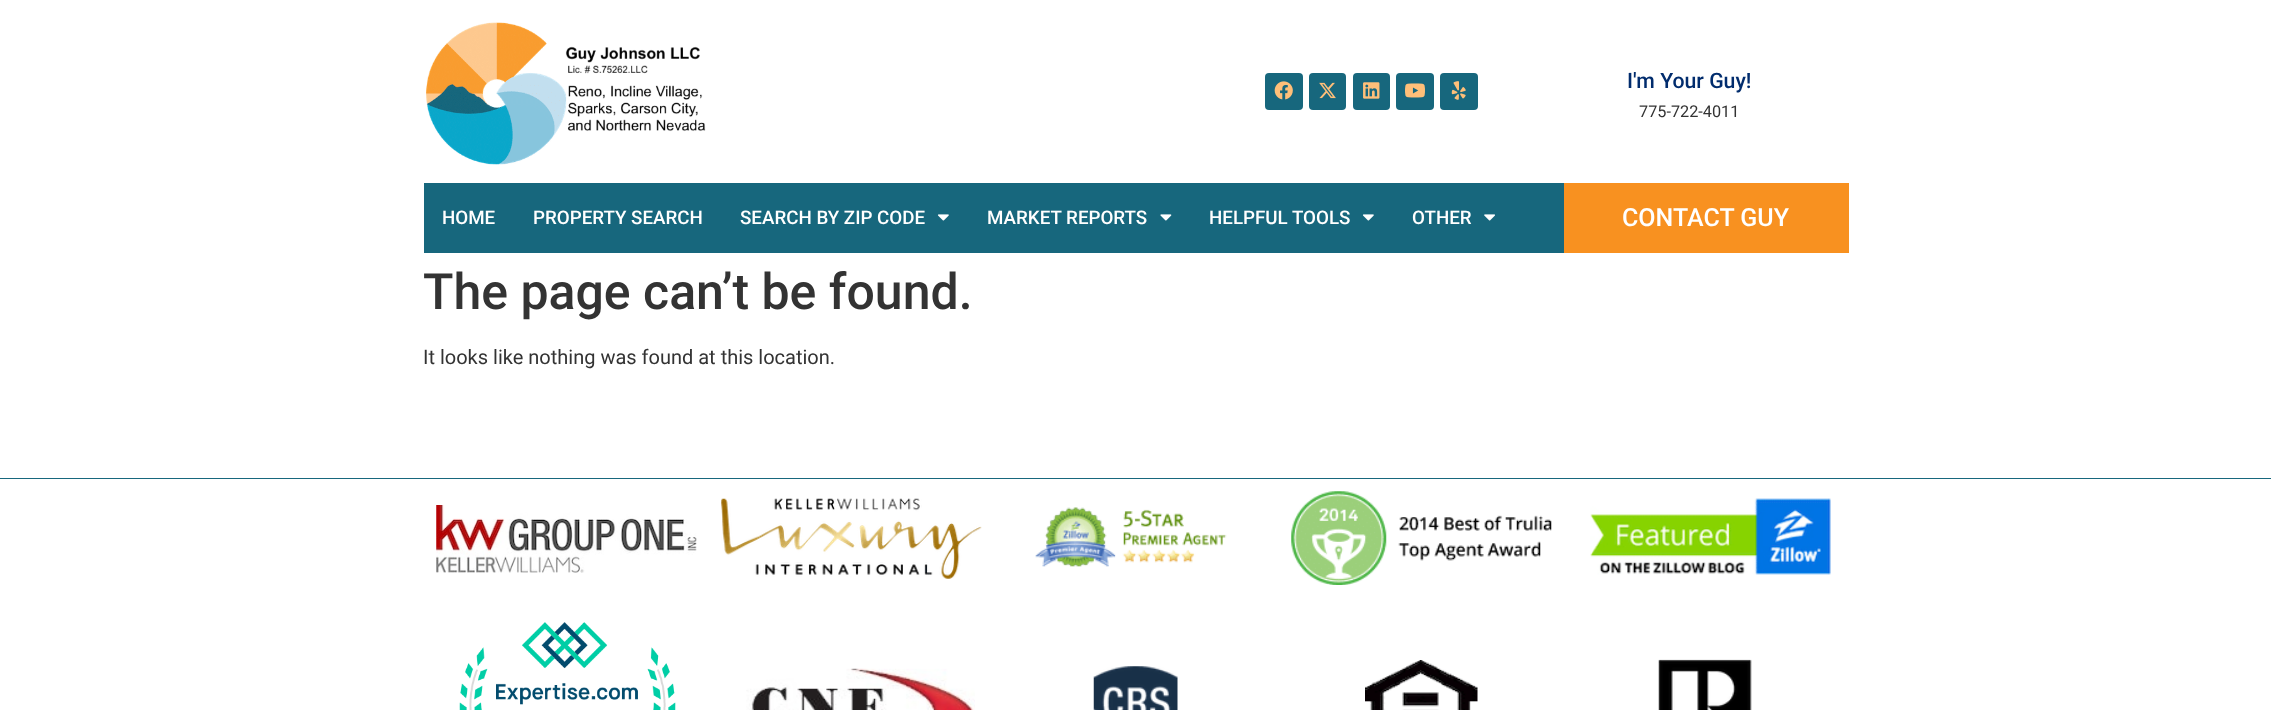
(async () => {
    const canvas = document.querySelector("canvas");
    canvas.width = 2271;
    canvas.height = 710;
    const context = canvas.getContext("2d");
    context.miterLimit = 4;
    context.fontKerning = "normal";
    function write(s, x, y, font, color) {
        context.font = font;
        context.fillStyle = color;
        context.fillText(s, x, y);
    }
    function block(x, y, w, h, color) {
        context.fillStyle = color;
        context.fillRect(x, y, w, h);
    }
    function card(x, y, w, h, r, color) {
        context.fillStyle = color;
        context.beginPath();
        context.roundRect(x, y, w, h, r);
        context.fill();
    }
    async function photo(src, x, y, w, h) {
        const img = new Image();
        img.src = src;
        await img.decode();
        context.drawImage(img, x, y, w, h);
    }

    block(0, 0, 2271, 710, "rgb(255, 255, 255)");
    await photo("media/1.png", 426, 22, 280, 143);
    card(1265, 73, 38, 37, 4, "rgb(23, 103, 125)");
    await photo("media/2.png", 1274, 81, 19, 19);
    card(1309, 73, 37, 37, 4, "rgb(23, 103, 125)");
    await photo("media/3.png", 1319, 82, 17, 17);
    card(1353, 73, 37, 37, 4, "rgb(23, 103, 125)");
    await photo("media/4.png", 1363, 82, 17, 17);
    card(1396, 73, 38, 37, 4, "rgb(23, 103, 125)");
    await photo("media/5.png", 1405, 83, 20, 15);
    card(1440, 73, 38, 37, 4, "rgb(23, 103, 125)");
    await photo("media/6.png", 1451, 81, 15, 19);
    write("I'm Your Guy!", 1627, 88, "500 21.25px Roboto", "rgb(1, 44, 109)");
    write("775-722-4011", 1639, 117, "16.25px Roboto", "rgb(51, 51, 51)");
    block(424, 183, 1140, 70, "rgb(23, 103, 125)");
    write("HOME", 442, 224, "500 18.75px Roboto", "rgb(255, 255, 255)");
    write("PROPERTY SEARCH", 533, 224, "500 18.75px Roboto", "rgb(255, 255, 255)");
    write("SEARCH BY ZIP CODE", 740, 224, "500 18.75px Roboto", "rgb(255, 255, 255)");
    await photo("media/7.png", 937, 214, 12, 7);
    write("MARKET REPORTS", 987, 224, "500 18.75px Roboto", "rgb(255, 255, 255)");
    await photo("media/8.png", 1160, 214, 12, 7);
    write("HELPFUL TOOLS", 1209, 224, "500 18.75px Roboto", "rgb(255, 255, 255)");
    await photo("media/7.png", 1362, 214, 12, 7);
    write("OTHER", 1412, 224, "500 18.75px Roboto", "rgb(255, 255, 255)");
    await photo("media/9.png", 1484, 214, 11, 7);
    block(1564, 183, 285, 70, "rgb(248, 145, 32)");
    write("CONTACT GUY", 1622, 226, "500 25px Roboto", "rgb(255, 255, 255)");
    write("The page can’t be found.", 423, 309, "500 50px Roboto", "rgb(51, 51, 51)");
    write("It looks like nothing was found at this location.", 423, 364, "20px Roboto", "rgb(51, 51, 51)");
    block(0, 478, 2271, 1, "rgb(23, 103, 125)");
    await photo("media/10.png", 436, 505, 261, 68);
    await photo("media/11.png", 721, 498, 261, 81);
    await photo("media/12.png", 1035, 507, 192, 60);
    await photo("media/13.png", 1291, 491, 261, 94);
    await photo("media/14.png", 1590, 498, 241, 77);
    await photo("media/15.png", 459, 622, 217, 88);
    await photo("media/16.png", 746, 668, 229, 42);
    await photo("media/17.png", 1093, 666, 85, 44);
    await photo("media/18.png", 1365, 660, 113, 50);
    await photo("media/19.png", 1658, 659, 94, 51);
})();
